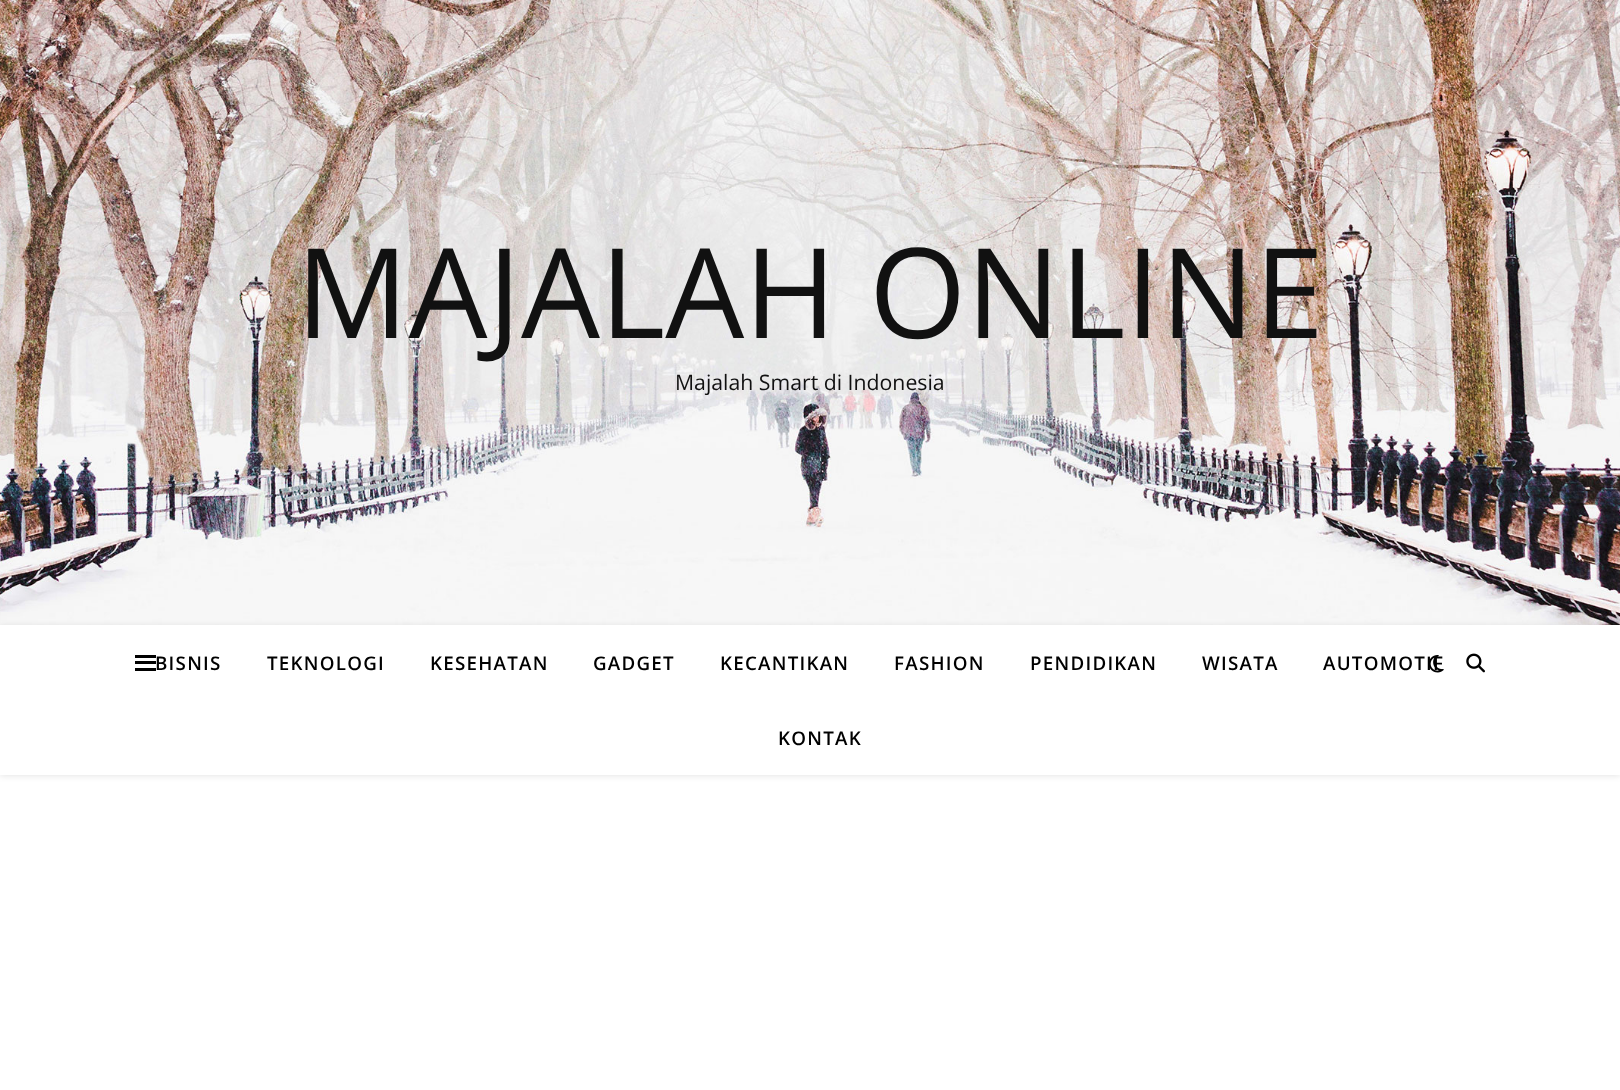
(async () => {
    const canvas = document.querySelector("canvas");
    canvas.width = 1620;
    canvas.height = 1090;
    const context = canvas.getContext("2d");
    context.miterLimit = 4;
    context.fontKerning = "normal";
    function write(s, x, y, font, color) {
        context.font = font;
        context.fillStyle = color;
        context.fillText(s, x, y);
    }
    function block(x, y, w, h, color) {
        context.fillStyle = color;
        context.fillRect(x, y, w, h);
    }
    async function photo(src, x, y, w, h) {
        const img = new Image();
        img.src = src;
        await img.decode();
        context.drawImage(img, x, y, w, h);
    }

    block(0, 0, 1620, 1090, "rgb(255, 255, 255)");
    await photo("media/1.png", 0, 0, 1620, 625);
    write("MAJALAH ONLINE", 296, 338, "125px Open Sans", "rgb(17, 17, 17)");
    write("Majalah Smart di Indonesia", 675, 390, "21.25px Open Sans", "rgb(17, 17, 17)");
    context.save();
    context.beginPath();
    context.moveTo(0, 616);
    context.lineTo(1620, 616);
    context.lineTo(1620, 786);
    context.lineTo(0, 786);
    context.closePath();
    context.moveTo(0, 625);
    context.lineTo(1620, 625);
    context.lineTo(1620, 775);
    context.lineTo(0, 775);
    context.closePath();
    context.clip("evenodd");
    context.fillStyle = "rgba(0, 0, 0, 0.1)";
    context.filter = "blur(3px)";
    context.beginPath();
    context.rect(0, 626, 1620, 150);
    context.fill();
    context.filter = "none";
    context.restore();
    block(135, 655, 21, 3, "rgb(0, 0, 0)");
    block(135, 661, 21, 3, "rgb(0, 0, 0)");
    block(135, 668, 21, 3, "rgb(0, 0, 0)");
    context.letterSpacing = "1.25px";
    write("BISNIS", 155, 670, "600 18.75px Open Sans", "rgb(0, 0, 0)");
    write("TEKNOLOGI", 267, 670, "600 18.75px Open Sans", "rgb(0, 0, 0)");
    write("KESEHATAN", 430, 670, "600 18.75px Open Sans", "rgb(0, 0, 0)");
    write("GADGET", 593, 670, "600 18.75px Open Sans", "rgb(0, 0, 0)");
    write("KECANTIKAN", 720, 670, "600 18.75px Open Sans", "rgb(0, 0, 0)");
    write("FASHION", 894, 670, "600 18.75px Open Sans", "rgb(0, 0, 0)");
    write("PENDIDIKAN", 1030, 670, "600 18.75px Open Sans", "rgb(0, 0, 0)");
    write("WISATA", 1202, 670, "600 18.75px Open Sans", "rgb(0, 0, 0)");
    write("AUTOMOTIF", 1323, 670, "600 18.75px Open Sans", "rgb(0, 0, 0)");
    write("KONTAK", 778, 745, "600 18.75px Open Sans", "rgb(0, 0, 0)");
    await photo("media/2.png", 1428, 655, 16, 18);
    await photo("media/3.png", 1466, 653, 19, 20);
})();
